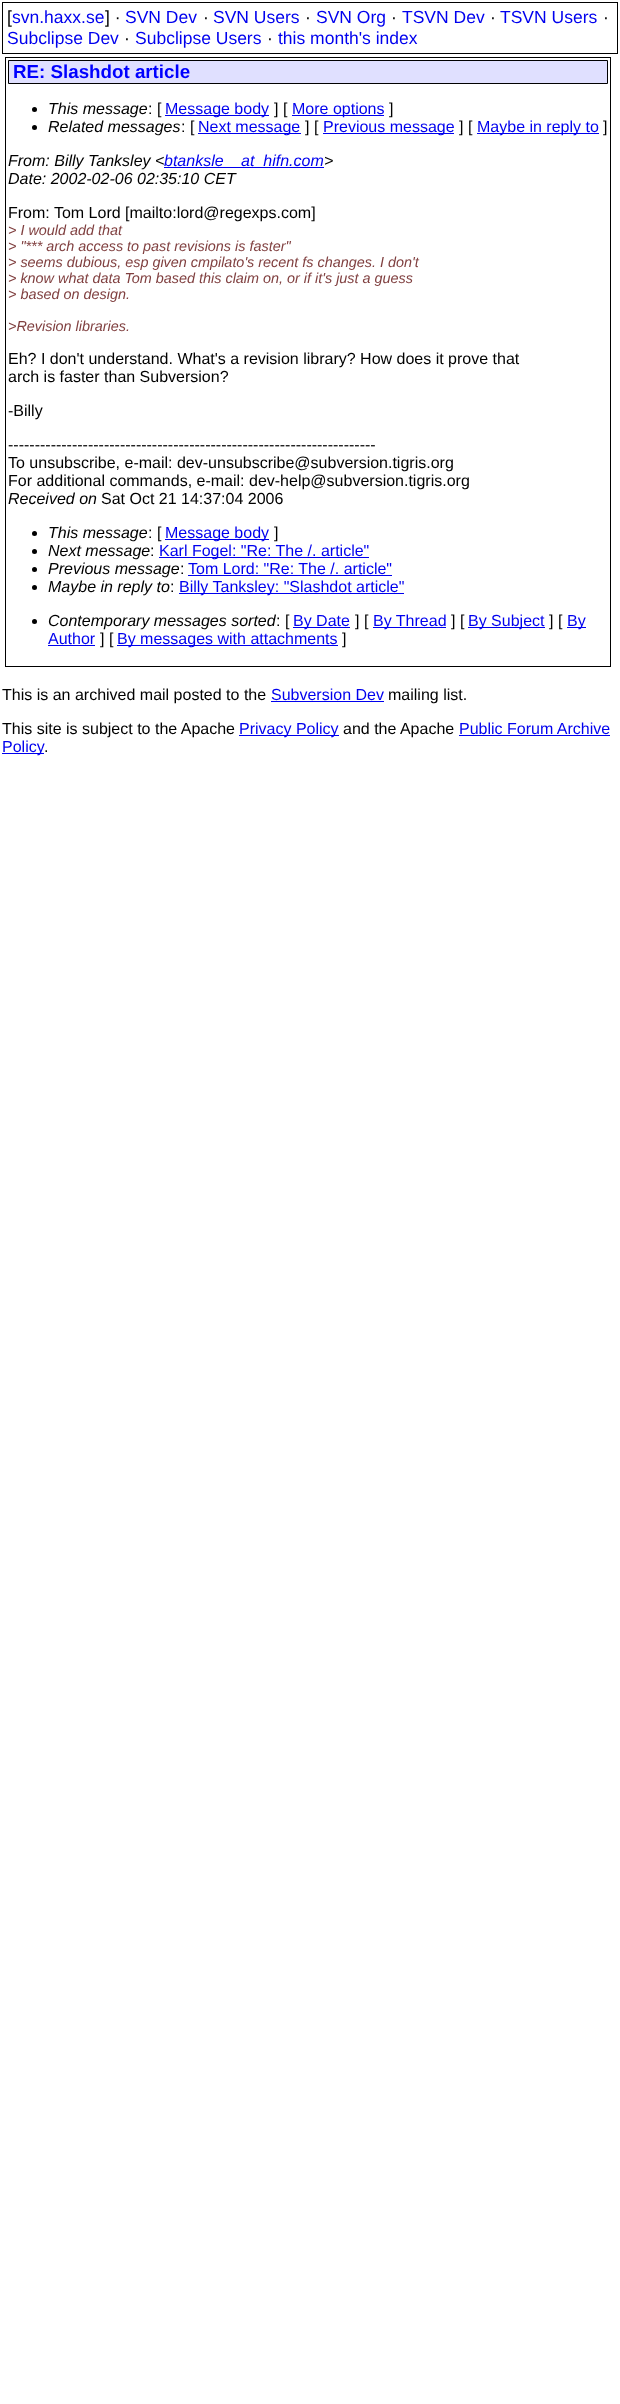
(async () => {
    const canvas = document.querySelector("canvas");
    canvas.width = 620;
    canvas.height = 2404;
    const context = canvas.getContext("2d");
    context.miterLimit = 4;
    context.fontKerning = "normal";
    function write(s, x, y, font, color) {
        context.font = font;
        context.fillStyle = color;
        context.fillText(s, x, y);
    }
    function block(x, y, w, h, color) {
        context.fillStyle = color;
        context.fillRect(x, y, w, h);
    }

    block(0, 0, 620, 2404, "rgb(255, 255, 255)");
    context.strokeStyle = "rgb(0, 0, 0)";
    context.strokeRect(2.5, 2.5, 615, 51);
    write("[", 7, 23, "17.5px Liberation Sans", "rgb(0, 0, 0)");
    write("svn.haxx.se", 12, 23, "17.5px Liberation Sans", "rgb(0, 0, 238)");
    write("] ·", 105, 23, "17.5px Liberation Sans", "rgb(0, 0, 0)");
    write("SVN Dev", 125, 23, "17.5px Liberation Sans", "rgb(0, 0, 238)");
    write("·", 203, 23, "17.5px Liberation Sans", "rgb(0, 0, 0)");
    write("SVN Users", 213, 23, "17.5px Liberation Sans", "rgb(0, 0, 238)");
    write("·", 305, 23, "17.5px Liberation Sans", "rgb(0, 0, 0)");
    write("SVN Org", 316, 23, "17.5px Liberation Sans", "rgb(0, 0, 238)");
    write("·", 391, 23, "17.5px Liberation Sans", "rgb(0, 0, 0)");
    write("TSVN Dev", 402, 23, "17.5px Liberation Sans", "rgb(0, 0, 238)");
    write("·", 490, 23, "17.5px Liberation Sans", "rgb(0, 0, 0)");
    write("TSVN Users", 500, 23, "17.5px Liberation Sans", "rgb(0, 0, 238)");
    write("·", 603, 23, "17.5px Liberation Sans", "rgb(0, 0, 0)");
    write("Subclipse Dev", 7, 44, "17.5px Liberation Sans", "rgb(0, 0, 238)");
    write("·", 124, 44, "17.5px Liberation Sans", "rgb(0, 0, 0)");
    write("Subclipse Users", 135, 44, "17.5px Liberation Sans", "rgb(0, 0, 238)");
    write("·", 267, 44, "17.5px Liberation Sans", "rgb(0, 0, 0)");
    write("this month's index", 278, 44, "17.5px Liberation Sans", "rgb(0, 0, 238)");
    context.strokeRect(5.5, 57.5, 605, 609);
    context.fillStyle = "rgb(224, 224, 255)";
    context.beginPath();
    context.rect(8.5, 60.5, 599, 23);
    context.fill();
    context.stroke();
    write("RE: Slashdot article", 13, 78, "bold 18.75px Liberation Sans", "rgb(0, 0, 255)");
    context.fillStyle = "rgb(0, 0, 0)";
    context.beginPath();
    context.arc(34.5, 109.5, 2.5, 0, Math.PI * 2);
    context.fill();
    write("This message", 48, 114, "italic 16px Liberation Sans", "rgb(0, 0, 0)");
    write(": [", 148, 114, "16px Liberation Sans", "rgb(0, 0, 0)");
    block(165, 115, 104, 1, "rgb(0, 0, 238)");
    write("Message body", 165, 114, "16px Liberation Sans", "rgb(0, 0, 238)");
    write("] [", 274, 114, "16px Liberation Sans", "rgb(0, 0, 0)");
    block(292, 115, 92, 1, "rgb(0, 0, 238)");
    write("More options", 292, 114, "16px Liberation Sans", "rgb(0, 0, 238)");
    write("]", 389, 114, "16px Liberation Sans", "rgb(0, 0, 0)");
    context.beginPath();
    context.arc(34.5, 127.5, 2.5, 0, Math.PI * 2);
    context.fill();
    write("Related messages", 48, 132, "italic 16px Liberation Sans", "rgb(0, 0, 0)");
    write(": [", 181, 132, "16px Liberation Sans", "rgb(0, 0, 0)");
    block(198, 133, 103, 1, "rgb(0, 0, 238)");
    write("Next message", 198, 132, "16px Liberation Sans", "rgb(0, 0, 238)");
    write("] [", 305, 132, "16px Liberation Sans", "rgb(0, 0, 0)");
    block(323, 133, 131, 1, "rgb(0, 0, 238)");
    write("Previous message", 323, 132, "16px Liberation Sans", "rgb(0, 0, 238)");
    write("] [", 459, 132, "16px Liberation Sans", "rgb(0, 0, 0)");
    block(477, 133, 122, 1, "rgb(0, 0, 238)");
    write("Maybe in reply to", 477, 132, "16px Liberation Sans", "rgb(0, 0, 238)");
    write("]", 603, 132, "16px Liberation Sans", "rgb(0, 0, 0)");
    write("From: Billy Tanksley <", 8, 166, "italic 16px Liberation Sans", "rgb(0, 0, 0)");
    block(164, 167, 160, 1, "rgb(0, 0, 238)");
    write("btanksle", 164, 166, "italic 16px Liberation Sans", "rgb(0, 0, 238)");
    write("at_hifn.com", 241, 166, "italic 16px Liberation Sans", "rgb(0, 0, 238)");
    write(">", 324, 166, "italic 16px Liberation Sans", "rgb(0, 0, 0)");
    write("Date: 2002-02-06 02:35:10 CET", 8, 184, "italic 16px Liberation Sans", "rgb(0, 0, 0)");
    write("From: Tom Lord [mailto:lord@regexps.com]", 8, 218, "16px Liberation Sans", "rgb(0, 0, 0)");
    write("> I would add that", 8, 235, "italic 14.4px Liberation Sans", "rgb(128, 64, 64)");
    write("> \"*** arch access to past revisions is faster\"", 8, 251, "italic 14.4px Liberation Sans", "rgb(128, 64, 64)");
    write("> seems dubious, esp given cmpilato's recent fs changes. I don't", 8, 267, "italic 14.4px Liberation Sans", "rgb(128, 64, 64)");
    write("> know what data Tom based this claim on, or if it's just a guess", 8, 283, "italic 14.4px Liberation Sans", "rgb(128, 64, 64)");
    write("> based on design.", 8, 299, "italic 14.4px Liberation Sans", "rgb(128, 64, 64)");
    write(">Revision libraries.", 8, 331, "italic 14.4px Liberation Sans", "rgb(128, 64, 64)");
    write("Eh? I don't understand. What's a revision library? How does it prove that", 8, 364, "16px Liberation Sans", "rgb(0, 0, 0)");
    write("arch is faster than Subversion?", 8, 382, "16px Liberation Sans", "rgb(0, 0, 0)");
    write("-Billy", 8, 416, "16px Liberation Sans", "rgb(0, 0, 0)");
    write("---------------------------------------------------------------------", 8, 450, "16px Liberation Sans", "rgb(0, 0, 0)");
    write("To unsubscribe, e-mail: dev-unsubscribe@subversion.tigris.org", 8, 468, "16px Liberation Sans", "rgb(0, 0, 0)");
    write("For additional commands, e-mail: dev-help@subversion.tigris.org", 8, 486, "16px Liberation Sans", "rgb(0, 0, 0)");
    write("Received on", 8, 504, "italic 16px Liberation Sans", "rgb(0, 0, 0)");
    write("Sat Oct 21 14:37:04 2006", 101, 504, "16px Liberation Sans", "rgb(0, 0, 0)");
    context.beginPath();
    context.arc(34.5, 533.5, 2.5, 0, Math.PI * 2);
    context.fill();
    write("This message", 48, 538, "italic 16px Liberation Sans", "rgb(0, 0, 0)");
    write(": [", 148, 538, "16px Liberation Sans", "rgb(0, 0, 0)");
    block(165, 539, 104, 1, "rgb(0, 0, 238)");
    write("Message body", 165, 538, "16px Liberation Sans", "rgb(0, 0, 238)");
    write("]", 274, 538, "16px Liberation Sans", "rgb(0, 0, 0)");
    context.beginPath();
    context.arc(34.5, 551.5, 2.5, 0, Math.PI * 2);
    context.fill();
    write("Next message", 48, 556, "italic 16px Liberation Sans", "rgb(0, 0, 0)");
    write(":", 150, 556, "16px Liberation Sans", "rgb(0, 0, 0)");
    block(159, 557, 210, 1, "rgb(0, 0, 238)");
    write("Karl Fogel: \"Re: The /. article\"", 159, 556, "16px Liberation Sans", "rgb(0, 0, 238)");
    context.fillStyle = "rgb(0, 0, 0)";
    context.beginPath();
    context.arc(34.5, 569.5, 2.5, 0, Math.PI * 2);
    context.fill();
    write("Previous message", 48, 574, "italic 16px Liberation Sans", "rgb(0, 0, 0)");
    write(":", 180, 574, "16px Liberation Sans", "rgb(0, 0, 0)");
    write("Tom Lord: \"Re: The /. article\"", 188, 574, "16px Liberation Sans", "rgb(0, 0, 238)");
    block(188, 575, 204, 1, "rgb(0, 0, 238)");
    context.fillStyle = "rgb(0, 0, 0)";
    context.beginPath();
    context.arc(34.5, 587.5, 2.5, 0, Math.PI * 2);
    context.fill();
    write("Maybe in reply to", 48, 592, "italic 16px Liberation Sans", "rgb(0, 0, 0)");
    write(":", 170, 592, "16px Liberation Sans", "rgb(0, 0, 0)");
    block(179, 593, 225, 1, "rgb(0, 0, 238)");
    write("Billy Tanksley: \"Slashdot article\"", 179, 592, "16px Liberation Sans", "rgb(0, 0, 238)");
    context.fillStyle = "rgb(0, 0, 0)";
    context.beginPath();
    context.arc(34.5, 621.5, 2.5, 0, Math.PI * 2);
    context.fill();
    write("Contemporary messages sorted", 48, 626, "italic 16px Liberation Sans", "rgb(0, 0, 0)");
    write(": [", 276, 626, "16px Liberation Sans", "rgb(0, 0, 0)");
    block(293, 627, 57, 1, "rgb(0, 0, 238)");
    write("By Date", 293, 626, "16px Liberation Sans", "rgb(0, 0, 238)");
    write("] [", 355, 626, "16px Liberation Sans", "rgb(0, 0, 0)");
    block(373, 627, 73, 1, "rgb(0, 0, 238)");
    write("By Thread", 373, 626, "16px Liberation Sans", "rgb(0, 0, 238)");
    write("] [", 451, 626, "16px Liberation Sans", "rgb(0, 0, 0)");
    block(468, 627, 77, 1, "rgb(0, 0, 238)");
    write("By Subject", 468, 626, "16px Liberation Sans", "rgb(0, 0, 238)");
    write("] [", 549, 626, "16px Liberation Sans", "rgb(0, 0, 0)");
    block(567, 627, 19, 1, "rgb(0, 0, 238)");
    write("By", 567, 626, "16px Liberation Sans", "rgb(0, 0, 238)");
    write("Author", 48, 644, "16px Liberation Sans", "rgb(0, 0, 238)");
    block(48, 645, 47, 1, "rgb(0, 0, 238)");
    write("] [", 100, 644, "16px Liberation Sans", "rgb(0, 0, 0)");
    block(117, 645, 221, 1, "rgb(0, 0, 238)");
    write("By messages with attachments", 117, 644, "16px Liberation Sans", "rgb(0, 0, 238)");
    write("]", 342, 644, "16px Liberation Sans", "rgb(0, 0, 0)");
    write("This is an archived mail posted to the", 2, 700, "16px Liberation Sans", "rgb(0, 0, 0)");
    write("Subversion Dev", 271, 700, "16px Liberation Sans", "rgb(0, 0, 238)");
    block(271, 701, 113, 1, "rgb(0, 0, 238)");
    write("mailing list.", 388, 700, "16px Liberation Sans", "rgb(0, 0, 0)");
    write("This site is subject to the Apache", 2, 734, "16px Liberation Sans", "rgb(0, 0, 0)");
    block(239, 735, 100, 1, "rgb(0, 0, 238)");
    write("Privacy Policy", 239, 734, "16px Liberation Sans", "rgb(0, 0, 238)");
    write("and the Apache", 343, 734, "16px Liberation Sans", "rgb(0, 0, 0)");
    write("Public Forum Archive", 459, 734, "16px Liberation Sans", "rgb(0, 0, 238)");
    block(459, 735, 151, 1, "rgb(0, 0, 238)");
    block(2, 753, 42, 1, "rgb(0, 0, 238)");
    write("Policy", 2, 752, "16px Liberation Sans", "rgb(0, 0, 238)");
    write(".", 44, 752, "16px Liberation Sans", "rgb(0, 0, 0)");
})();
